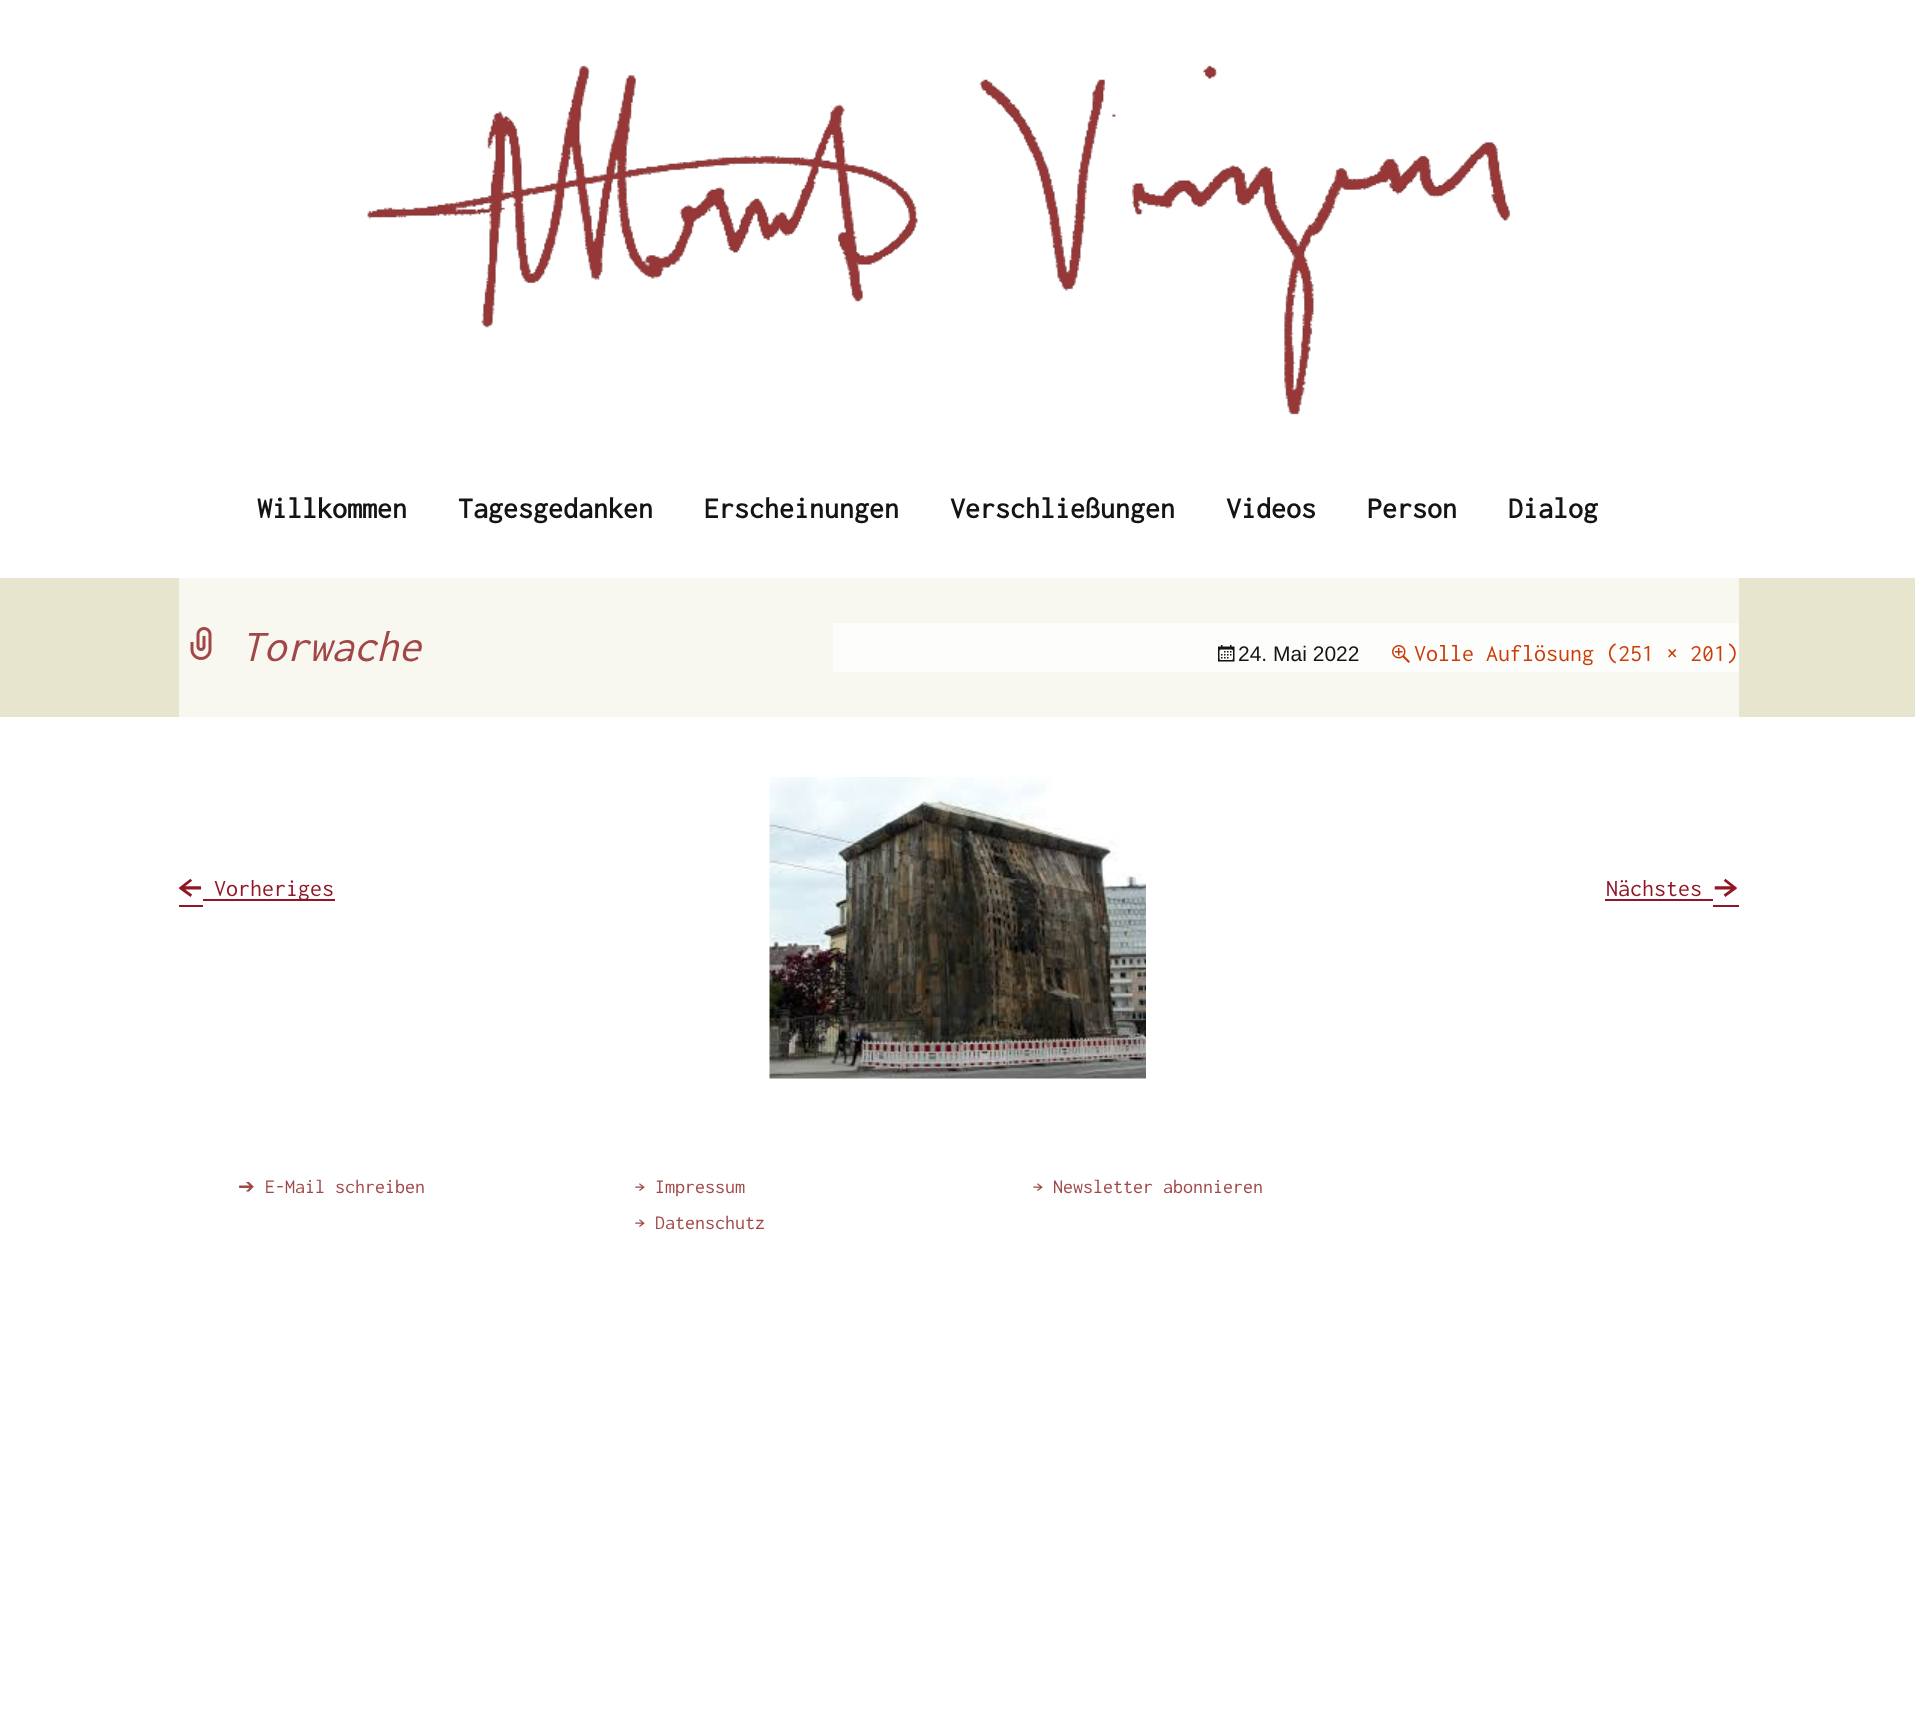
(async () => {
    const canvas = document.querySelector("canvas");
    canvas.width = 1915;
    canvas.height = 1736;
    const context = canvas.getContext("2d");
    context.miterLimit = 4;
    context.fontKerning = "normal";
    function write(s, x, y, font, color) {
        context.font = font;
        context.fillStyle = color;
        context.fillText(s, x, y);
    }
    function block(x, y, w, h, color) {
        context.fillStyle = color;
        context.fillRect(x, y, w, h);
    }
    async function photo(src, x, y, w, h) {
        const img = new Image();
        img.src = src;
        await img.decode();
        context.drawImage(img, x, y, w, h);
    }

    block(0, 0, 1915, 1736, "rgb(255, 255, 255)");
    await photo("media/1.png", 367, 65, 1144, 350);
    write("Willkommen", 257, 518, "bold 30px Inconsolata", "rgb(20, 20, 18)");
    write("Tagesgedanken", 458, 518, "bold 30px Inconsolata", "rgb(20, 20, 18)");
    write("Erscheinungen", 704, 518, "bold 30px Inconsolata", "rgb(20, 20, 18)");
    write("Verschließungen", 950, 518, "bold 30px Inconsolata", "rgb(20, 20, 18)");
    write("Videos", 1226, 518, "bold 30px Inconsolata", "rgb(20, 20, 18)");
    write("Person", 1367, 518, "bold 30px Inconsolata", "rgb(20, 20, 18)");
    write("Dialog", 1508, 518, "bold 30px Inconsolata", "rgb(20, 20, 18)");
    block(0, 578, 1915, 139, "rgb(232, 229, 206)");
    block(179, 578, 1560, 139, "rgb(248, 247, 240)");
    await photo("media/2.png", 190, 627, 22, 33);
    write("Torwache", 241, 661, "italic 45px Inconsolata", "rgb(161, 71, 71)");
    block(833, 623, 906, 49, "rgb(253, 253, 251)");
    await photo("media/3.png", 1218, 645, 17, 17);
    write("24. Mai 2022", 1238, 661, "21px Liberation Sans", "rgb(20, 20, 18)");
    await photo("media/4.png", 1392, 645, 18, 18);
    write("Volle Auflösung (251 × 201)", 1414, 661, "24px Inconsolata", "rgb(202, 60, 8)");
    await photo("media/5.png", 769, 777, 377, 302);
    write("←", 178, 902, "48px Inconsolata", "rgb(144, 23, 38)");
    block(179, 905, 24, 2, "rgb(144, 23, 38)");
    block(203, 899, 132, 2, "rgb(144, 23, 38)");
    write("Vorheriges", 214, 896, "24px Inconsolata", "rgb(144, 23, 38)");
    write("Nächstes", 1606, 896, "24px Inconsolata", "rgb(144, 23, 38)");
    block(1605, 899, 108, 2, "rgb(144, 23, 38)");
    write("→", 1714, 902, "48px Inconsolata", "rgb(144, 23, 38)");
    block(1713, 905, 26, 2, "rgb(144, 23, 38)");
    write("➔", 238, 1193, "20px DejaVu Sans", "rgb(161, 71, 71)");
    write("E-Mail schreiben", 265, 1193, "20px Inconsolata", "rgb(161, 71, 71)");
    write("→ Impressum", 635, 1193, "20px Inconsolata", "rgb(161, 71, 71)");
    write("→ Datenschutz", 635, 1229, "20px Inconsolata", "rgb(161, 71, 71)");
    write("→ Newsletter abonnieren", 1033, 1193, "20px Inconsolata", "rgb(161, 71, 71)");
})();
